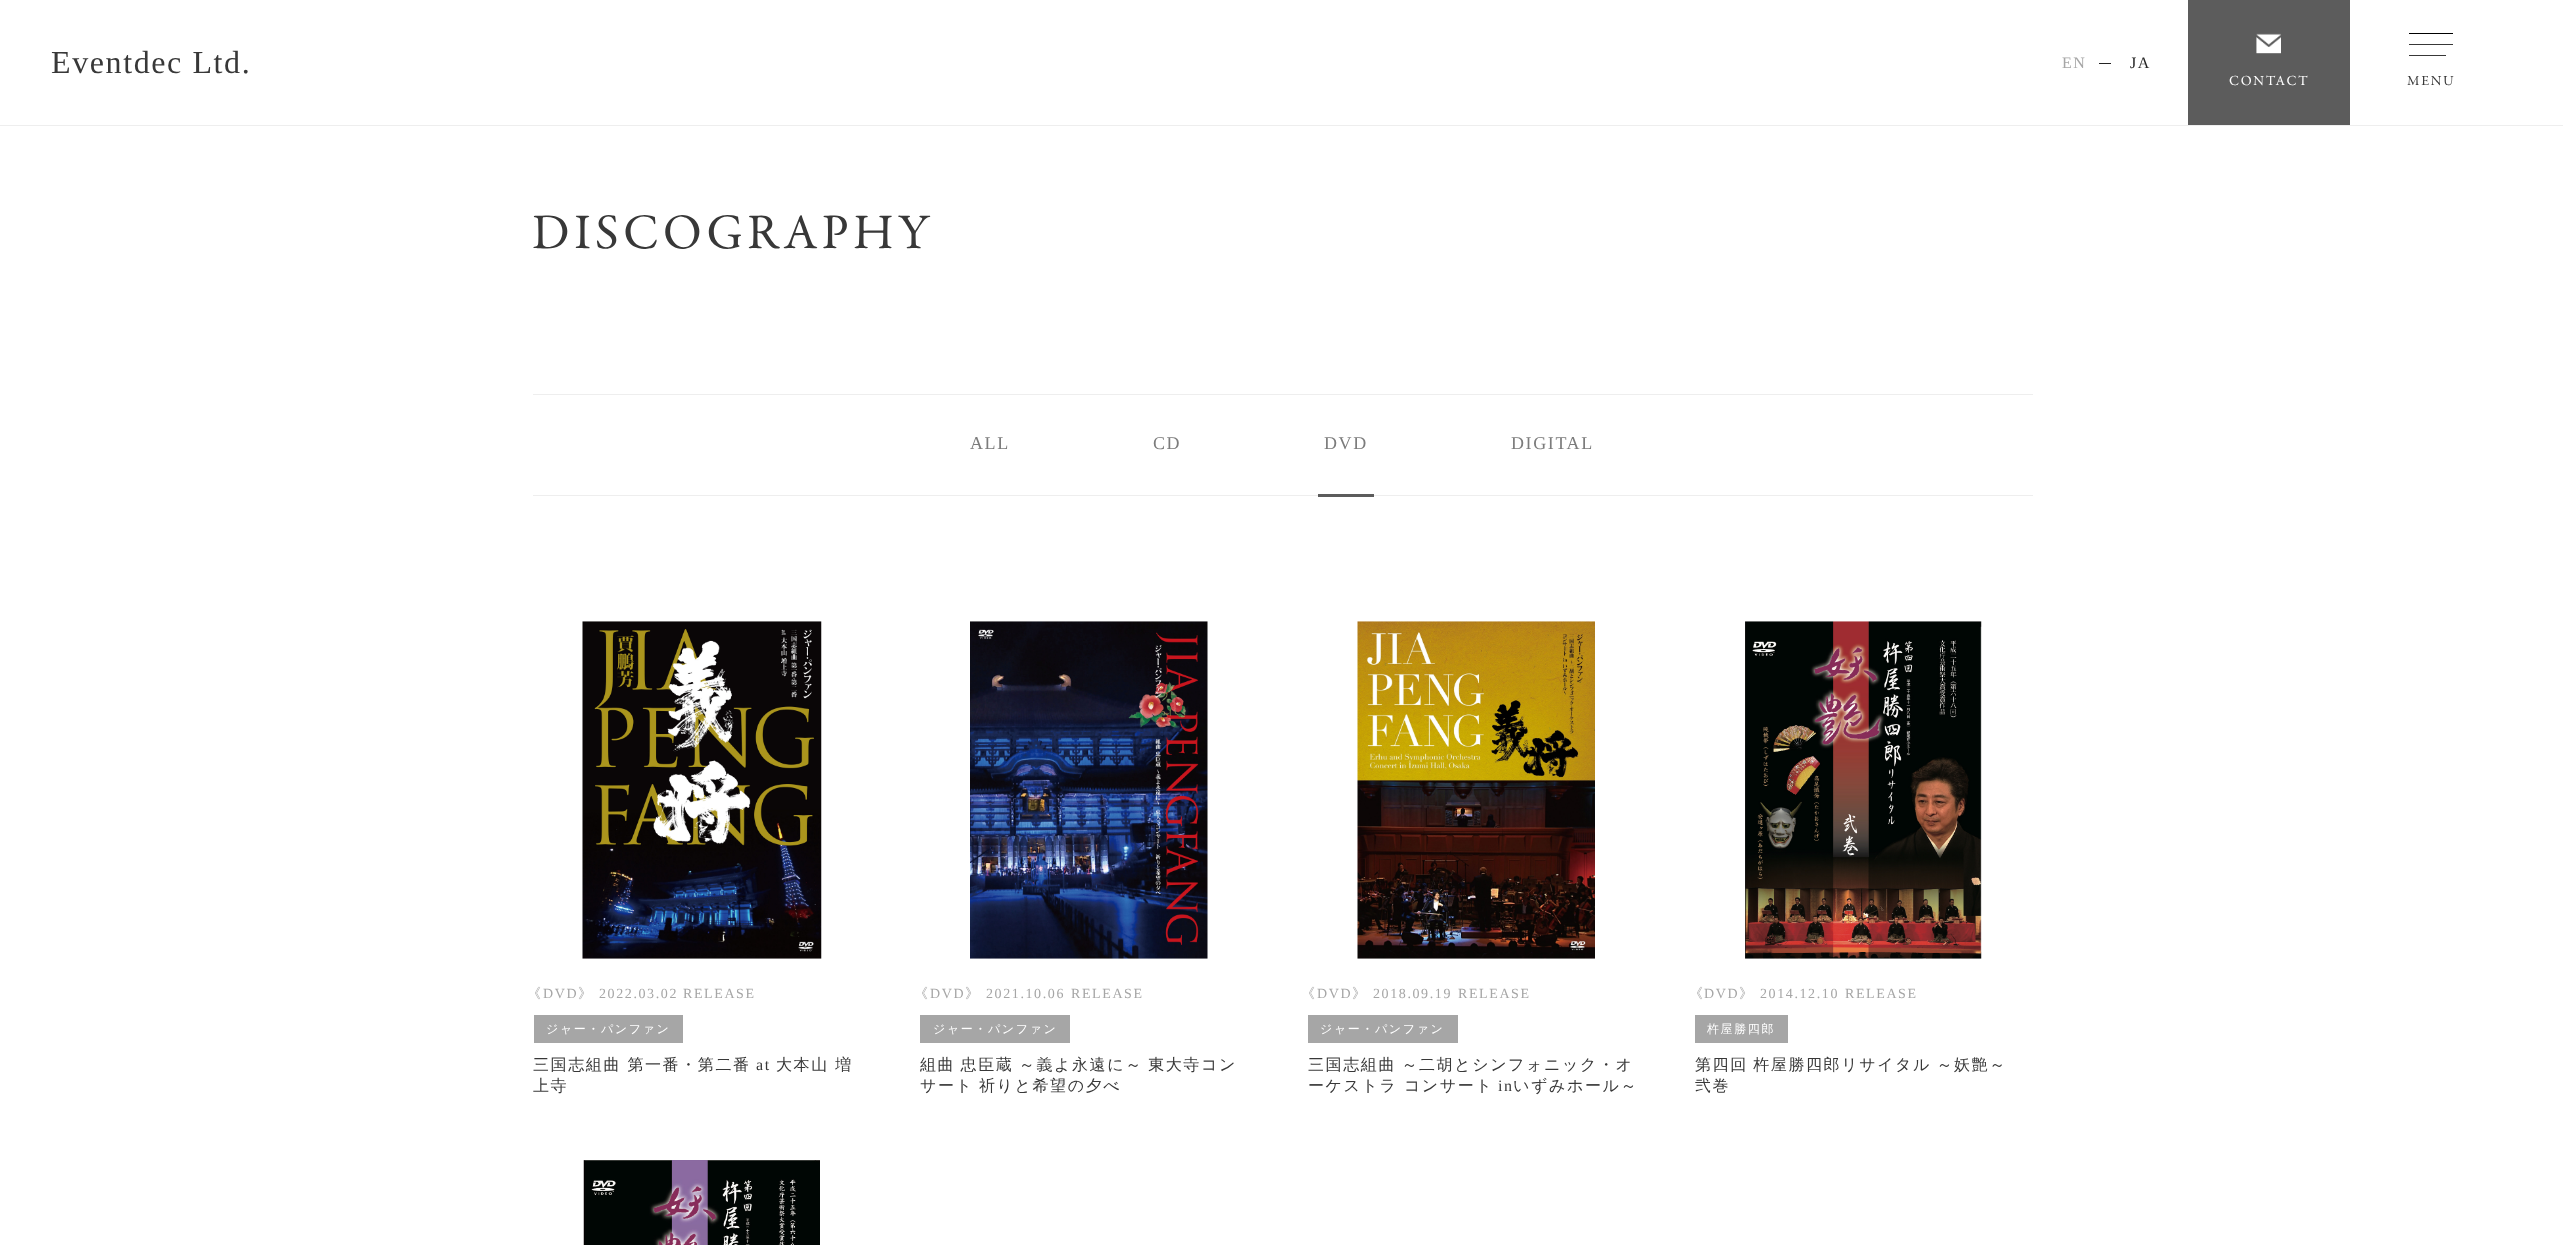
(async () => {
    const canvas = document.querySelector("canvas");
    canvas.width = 2563;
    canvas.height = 1245;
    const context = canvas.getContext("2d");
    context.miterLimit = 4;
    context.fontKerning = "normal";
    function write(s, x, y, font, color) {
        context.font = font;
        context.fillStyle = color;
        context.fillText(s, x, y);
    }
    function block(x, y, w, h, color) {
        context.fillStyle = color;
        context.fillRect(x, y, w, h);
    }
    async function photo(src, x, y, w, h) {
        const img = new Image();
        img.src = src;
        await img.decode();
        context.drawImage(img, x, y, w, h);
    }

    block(0, 0, 2563, 1245, "rgb(255, 255, 255)");
    block(0, 125, 2563, 1, "rgb(238, 238, 238)");
    context.letterSpacing = "1.6px";
    write("Eventdec Ltd.", 51, 73, "32px Liberation Serif", "rgb(56, 56, 56)");
    write("EN", 2062, 68, "16px Liberation Serif", "rgb(166, 166, 166)");
    block(2099, 63, 12, 1, "rgb(35, 35, 35)");
    write("JA", 2130, 68, "16px Liberation Serif", "rgb(35, 35, 35)");
    block(2188, 0, 162, 125, "rgb(92, 92, 92)");
    await photo("media/1.png", 2256, 33, 25, 21);
    write("CONTACT", 2229, 85, "14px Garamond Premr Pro", "rgb(255, 255, 255)");
    block(2409, 44, 44, 1, "rgb(56, 56, 56)");
    block(2409, 33, 44, 1, "rgb(0, 0, 0)");
    block(2409, 55, 37, 1, "rgb(56, 56, 56)");
    write("MENU", 2407, 85, "14px Garamond Premr Pro", "rgb(56, 56, 56)");
    context.letterSpacing = "3.75px";
    write("DISCOGRAPHY", 532, 248, "50px Garamond Premr Pro", "rgb(56, 56, 56)");
    block(533, 394, 1500, 1, "rgb(238, 238, 238)");
    block(533, 495, 1500, 1, "rgb(238, 238, 238)");
    context.letterSpacing = "1.6px";
    write("ALL", 970, 449, "18px Liberation Serif", "rgb(124, 124, 124)");
    write("CD", 1153, 449, "18px Liberation Serif", "rgb(124, 124, 124)");
    write("DVD", 1324, 449, "18px Liberation Serif", "rgb(124, 124, 124)");
    block(1318, 494, 56, 3, "rgb(92, 92, 92)");
    write("DIGITAL", 1511, 449, "18px Liberation Serif", "rgb(124, 124, 124)");
    await photo("media/2.png", 582, 621, 240, 338);
    write("《", 527, 998, "500 14px WenQuanYi Zen Hei", "rgb(166, 166, 166)");
    write("DVD", 543, 998, "14px Liberation Serif", "rgb(166, 166, 166)");
    write("》", 578, 998, "500 14px WenQuanYi Zen Hei", "rgb(166, 166, 166)");
    write("2022.03.02", 599, 998, "14px Liberation Serif", "rgb(166, 166, 166)");
    write("RELEASE", 683, 998, "14px Liberation Serif", "rgb(166, 166, 166)");
    block(534, 1015, 149, 28, "rgb(166, 166, 166)");
    write("ジャー・パンファン", 546, 1033, "500 12px WenQuanYi Zen Hei", "rgb(255, 255, 255)");
    write("三国志組曲 第一番・第二番", 533, 1070, "500 16px WenQuanYi Zen Hei", "rgb(56, 56, 56)");
    write("at", 756, 1070, "16px Liberation Serif", "rgb(56, 56, 56)");
    write("大本山 増", 776, 1070, "500 16px WenQuanYi Zen Hei", "rgb(56, 56, 56)");
    write("上寺", 533, 1091, "500 16px WenQuanYi Zen Hei", "rgb(56, 56, 56)");
    await photo("media/3.png", 970, 621, 238, 338);
    write("《", 914, 998, "500 14px WenQuanYi Zen Hei", "rgb(166, 166, 166)");
    write("DVD", 930, 998, "14px Liberation Serif", "rgb(166, 166, 166)");
    write("》", 965, 998, "500 14px WenQuanYi Zen Hei", "rgb(166, 166, 166)");
    write("2021.10.06", 986, 998, "14px Liberation Serif", "rgb(166, 166, 166)");
    write("RELEASE", 1071, 998, "14px Liberation Serif", "rgb(166, 166, 166)");
    block(920, 1015, 150, 28, "rgb(166, 166, 166)");
    write("ジャー・パンファン", 933, 1033, "500 12px WenQuanYi Zen Hei", "rgb(255, 255, 255)");
    context.wordSpacing = "-1px";
    write("組曲 忠臣蔵 ～義よ永遠に～ 東大寺コン", 920, 1070, "500 16px WenQuanYi Zen Hei", "rgb(56, 56, 56)");
    write("サート 祈りと希望の夕べ", 920, 1091, "500 16px WenQuanYi Zen Hei", "rgb(56, 56, 56)");
    await photo("media/4.png", 1357, 621, 238, 338);
    context.wordSpacing = "0px";
    write("《", 1301, 998, "500 14px WenQuanYi Zen Hei", "rgb(166, 166, 166)");
    write("DVD", 1317, 998, "14px Liberation Serif", "rgb(166, 166, 166)");
    write("》", 1352, 998, "500 14px WenQuanYi Zen Hei", "rgb(166, 166, 166)");
    write("2018.09.19", 1373, 998, "14px Liberation Serif", "rgb(166, 166, 166)");
    write("RELEASE", 1458, 998, "14px Liberation Serif", "rgb(166, 166, 166)");
    block(1308, 1015, 150, 28, "rgb(166, 166, 166)");
    write("ジャー・パンファン", 1320, 1033, "500 12px WenQuanYi Zen Hei", "rgb(255, 255, 255)");
    context.wordSpacing = "-1px";
    write("三国志組曲 ～二胡とシンフォニック・オ", 1308, 1070, "500 16px WenQuanYi Zen Hei", "rgb(56, 56, 56)");
    context.wordSpacing = "0px";
    write("ーケストラ コンサート", 1308, 1091, "500 16px WenQuanYi Zen Hei", "rgb(56, 56, 56)");
    write("in", 1498, 1091, "16px Liberation Serif", "rgb(56, 56, 56)");
    write("いずみホール～", 1513, 1091, "500 16px WenQuanYi Zen Hei", "rgb(56, 56, 56)");
    await photo("media/5.png", 1745, 621, 237, 338);
    write("《", 1689, 998, "500 14px WenQuanYi Zen Hei", "rgb(166, 166, 166)");
    write("DVD", 1704, 998, "14px Liberation Serif", "rgb(166, 166, 166)");
    write("》", 1739, 998, "500 14px WenQuanYi Zen Hei", "rgb(166, 166, 166)");
    write("2014.12.10", 1760, 998, "14px Liberation Serif", "rgb(166, 166, 166)");
    write("RELEASE", 1845, 998, "14px Liberation Serif", "rgb(166, 166, 166)");
    block(1695, 1015, 93, 28, "rgb(166, 166, 166)");
    write("杵屋勝四郎", 1707, 1033, "500 12px WenQuanYi Zen Hei", "rgb(255, 255, 255)");
    context.wordSpacing = "-1px";
    write("第四回 杵屋勝四郎リサイタル ～妖艶～", 1695, 1070, "500 16px WenQuanYi Zen Hei", "rgb(56, 56, 56)");
    context.wordSpacing = "0px";
    write("弐巻", 1695, 1091, "500 16px WenQuanYi Zen Hei", "rgb(56, 56, 56)");
    await photo("media/6.png", 583, 1160, 237, 85);
})();
